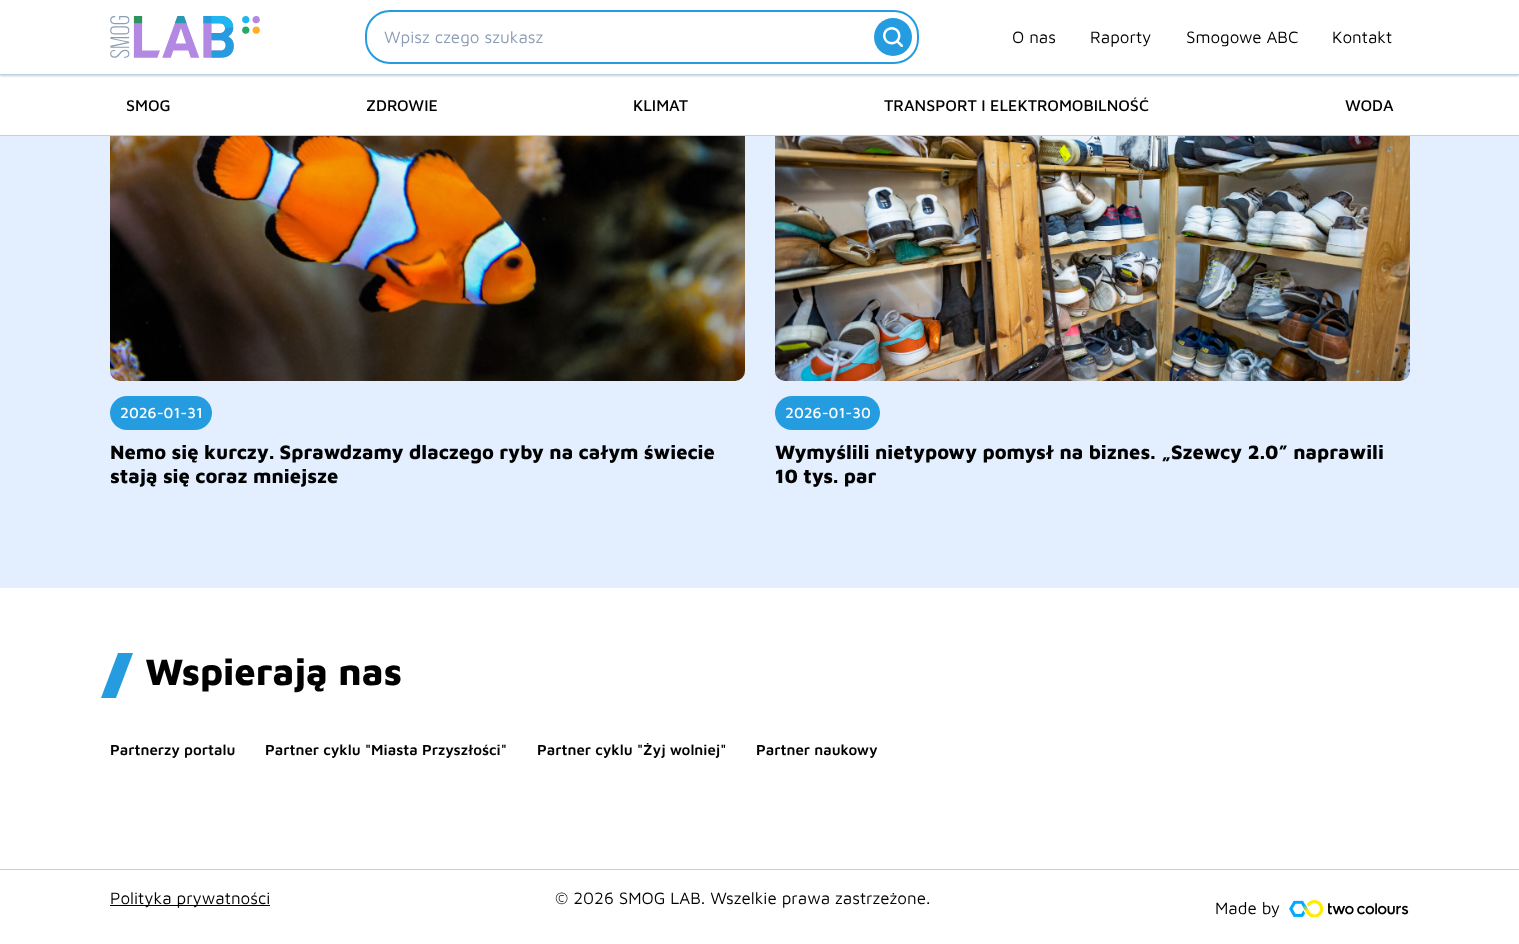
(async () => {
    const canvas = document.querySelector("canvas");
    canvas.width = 1519;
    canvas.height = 944;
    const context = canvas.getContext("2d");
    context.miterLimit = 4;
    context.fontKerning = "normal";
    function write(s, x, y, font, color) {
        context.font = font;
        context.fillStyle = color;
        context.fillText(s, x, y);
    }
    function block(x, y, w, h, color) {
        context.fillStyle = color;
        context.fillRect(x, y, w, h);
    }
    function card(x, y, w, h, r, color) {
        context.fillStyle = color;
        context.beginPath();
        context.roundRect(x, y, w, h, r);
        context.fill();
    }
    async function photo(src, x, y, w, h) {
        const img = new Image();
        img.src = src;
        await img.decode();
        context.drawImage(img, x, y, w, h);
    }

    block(0, 0, 1519, 944, "rgb(255, 255, 255)");
    context.fillStyle = "rgba(0, 0, 0, 0.2)";
    context.filter = "blur(1px)";
    context.beginPath();
    context.rect(0, 1, 1519, 75);
    context.fill();
    context.filter = "none";
    block(0, 0, 1519, 74, "rgb(255, 255, 255)");
    block(0, 74, 1519, 1, "rgb(189, 207, 229)");
    await photo("media/1.png", 110, 16, 150, 42);
    context.beginPath();
    context.roundRect(366, 11, 552, 52, 24);
    context.strokeStyle = "rgb(37, 156, 224)";
    context.lineWidth = 2;
    context.stroke();
    write("Wpisz czego szukasz", 384, 43, "17px Maven Pro", "rgb(140, 157, 182)");
    await photo("media/2.png", 874, 18, 38, 38);
    write("O nas", 1012, 43, "17px Maven Pro", "rgb(0, 0, 0)");
    write("Raporty", 1090, 43, "17px Maven Pro", "rgb(0, 0, 0)");
    write("Smogowe ABC", 1186, 43, "17px Maven Pro", "rgb(0, 0, 0)");
    write("Kontakt", 1332, 43, "17px Maven Pro", "rgb(0, 0, 0)");
    block(0, 135, 1519, 1, "rgb(189, 207, 229)");
    write("SMOG", 126, 111, "500 16px Maven Pro", "rgb(0, 0, 0)");
    write("ZDROWIE", 366, 111, "500 16px Maven Pro", "rgb(0, 0, 0)");
    write("KLIMAT", 633, 111, "500 16px Maven Pro", "rgb(0, 0, 0)");
    write("TRANSPORT I ELEKTROMOBILNOŚĆ", 884, 111, "500 16px Maven Pro", "rgb(0, 0, 0)");
    write("WODA", 1345, 111, "500 16px Maven Pro", "rgb(0, 0, 0)");
    block(0, 136, 1519, 452, "rgb(227, 239, 255)");
    await photo("media/3.png", 110, 136, 635, 245);
    card(110, 396, 102, 34, 17, "rgb(37, 156, 224)");
    write("2026-01-31", 120, 418, "500 15px Maven Pro", "rgb(255, 255, 255)");
    write("Nemo się kurczy. Sprawdzamy dlaczego ryby na całym świecie", 110, 459, "800 20px Maven Pro", "rgb(0, 0, 0)");
    write("stają się coraz mniejsze", 110, 483, "800 20px Maven Pro", "rgb(0, 0, 0)");
    await photo("media/4.png", 775, 136, 635, 245);
    card(775, 396, 105, 34, 17, "rgb(37, 156, 224)");
    write("2026-01-30", 785, 418, "500 15px Maven Pro", "rgb(255, 255, 255)");
    write("Wymyślili nietypowy pomysł na biznes. „Szewcy 2.0” naprawili", 775, 459, "800 20px Maven Pro", "rgb(0, 0, 0)");
    write("10 tys. par", 775, 483, "800 20px Maven Pro", "rgb(0, 0, 0)");
    context.fillStyle = "rgb(37, 156, 224)";
    context.beginPath();
    context.moveTo(118, 653);
    context.lineTo(133, 653);
    context.lineTo(116, 698);
    context.lineTo(101, 698);
    context.closePath();
    context.fill();
    write("Wspierają nas", 145, 685, "800 38px Maven Pro", "rgb(0, 0, 0)");
    write("Partnerzy portalu", 110, 755, "600 15px Maven Pro", "rgb(0, 0, 0)");
    write("Partner cyklu \"Miasta Przyszłości\"", 265, 755, "600 15px Maven Pro", "rgb(0, 0, 0)");
    write("Partner cyklu \"Żyj wolniej\"", 537, 755, "600 15px Maven Pro", "rgb(0, 0, 0)");
    write("Partner naukowy", 756, 755, "600 15px Maven Pro", "rgb(0, 0, 0)");
    block(0, 869, 1519, 1, "rgb(189, 207, 229)");
    block(110, 905, 160, 1, "rgb(0, 0, 0)");
    write("Polityka prywatności", 110, 904, "17px Maven Pro", "rgb(0, 0, 0)");
    write("© 2026 SMOG LAB. Wszelkie prawa zastrzeżone.", 555, 904, "17px Maven Pro", "rgb(0, 0, 0)");
    write("Made by", 1215, 914, "17px Maven Pro", "rgb(0, 0, 0)");
    await photo("media/5.png", 1289, 900, 120, 17);
})();
